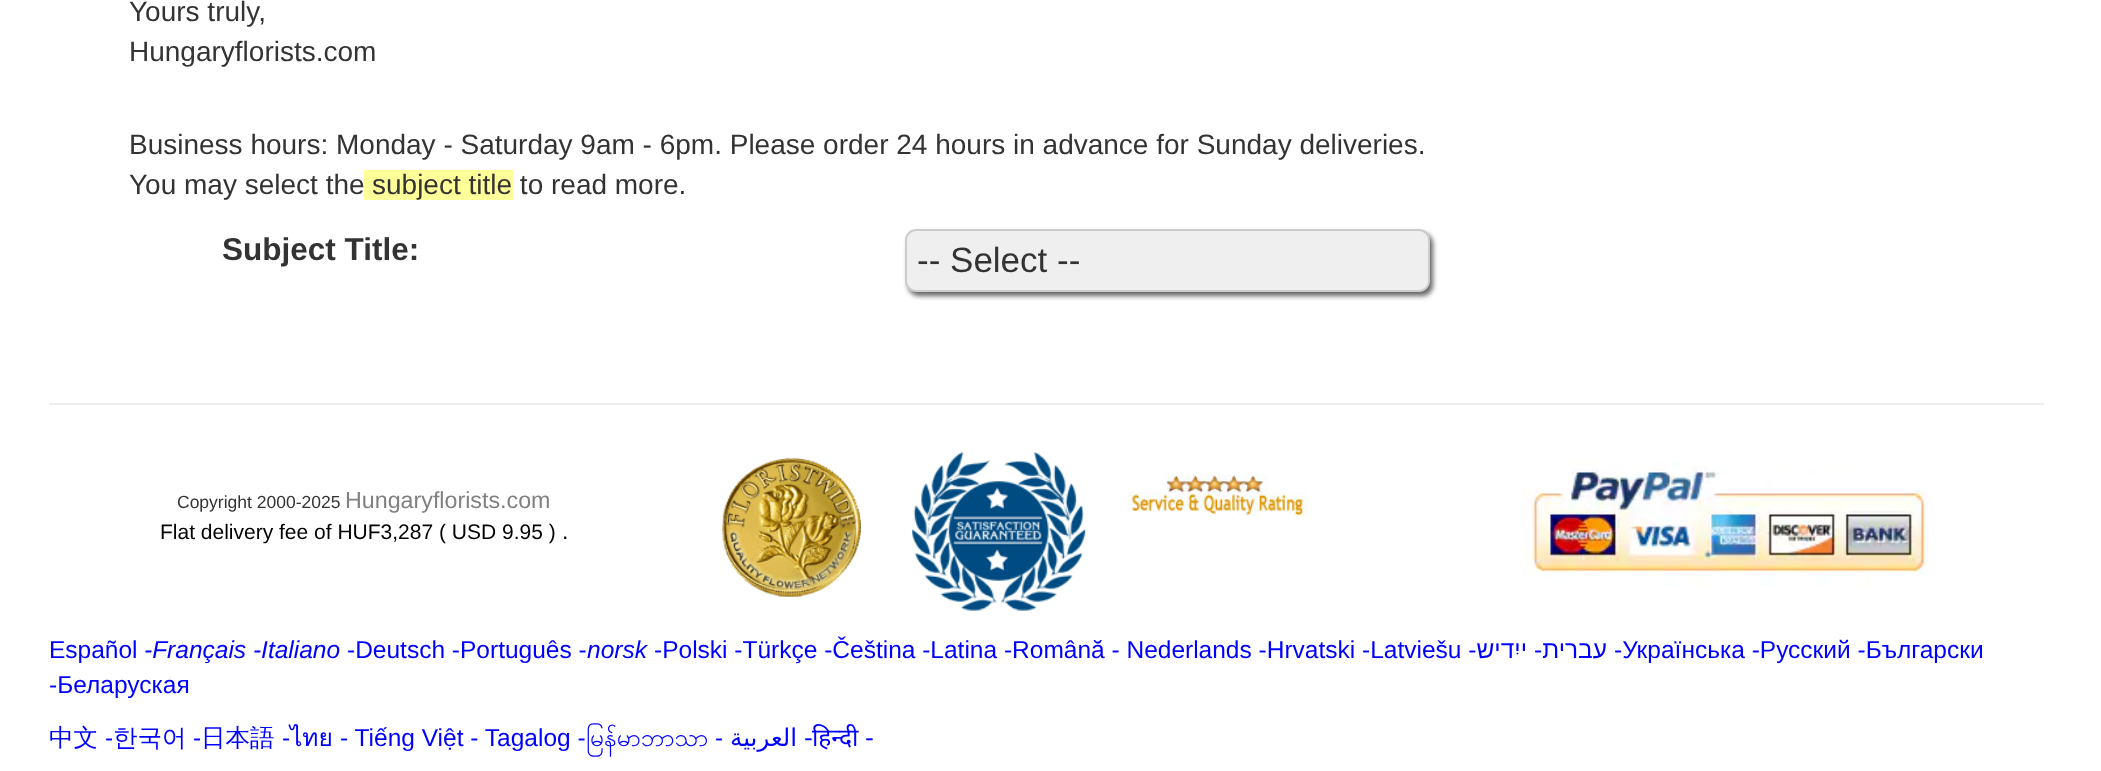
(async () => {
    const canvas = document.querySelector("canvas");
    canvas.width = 2101;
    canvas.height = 771;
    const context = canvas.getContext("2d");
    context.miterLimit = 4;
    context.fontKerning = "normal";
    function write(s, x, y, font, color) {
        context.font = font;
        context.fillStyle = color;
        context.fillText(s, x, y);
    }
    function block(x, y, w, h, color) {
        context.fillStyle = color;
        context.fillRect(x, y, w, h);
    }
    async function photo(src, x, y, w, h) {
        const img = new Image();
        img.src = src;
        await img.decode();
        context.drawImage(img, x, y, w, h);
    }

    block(0, 0, 2101, 771, "rgb(255, 255, 255)");
    write("Yours truly,", 129, 21, "28px Liberation Sans", "rgb(51, 51, 51)");
    write("Hungaryflorists.com", 129, 61, "28px Liberation Sans", "rgb(51, 51, 51)");
    write("Business hours: Monday - Saturday 9am - 6pm. Please order 24 hours in advance for Sunday deliveries.", 129, 154, "28px Liberation Sans", "rgb(51, 51, 51)");
    write("You may select the", 129, 194, "28px Liberation Sans", "rgb(51, 51, 51)");
    block(364, 170, 149, 30, "rgb(255, 255, 153)");
    write("subject title to read more.", 372, 194, "28px Liberation Sans", "rgb(51, 51, 51)");
    write("Subject Title:", 222, 260, "bold 31.5px Liberation Sans", "rgb(51, 51, 51)");
    context.fillStyle = "rgb(102, 102, 102)";
    context.filter = "blur(2.5px)";
    context.beginPath();
    context.roundRect(908, 233, 525, 63, 11);
    context.fill();
    context.filter = "none";
    context.fillStyle = "rgb(239, 239, 239)";
    context.beginPath();
    context.roundRect(906, 230, 523, 61, 10);
    context.fill();
    context.strokeStyle = "rgb(204, 204, 204)";
    context.lineWidth = 2;
    context.stroke();
    write("-- Select --", 917, 272, "35px Liberation Sans", "rgb(51, 51, 51)");
    block(49, 403, 1995, 2, "rgb(238, 238, 238)");
    write("Copyright 2000-2025", 177, 508, "17.5px Liberation Sans", "rgb(51, 51, 51)");
    write("Hungaryflorists.com", 345, 508, "23.25px Liberation Sans", "rgb(128, 128, 128)");
    write("Flat delivery fee of HUF3,287 ( USD 9.95 )", 160, 539, "21px Liberation Sans", "rgb(0, 0, 0)");
    write(".", 562, 539, "23px Liberation Sans", "rgb(0, 0, 0)");
    await photo("media/1.png", 721, 457, 140, 140);
    await photo("media/2.png", 912, 452, 174, 159);
    await photo("media/3.png", 1127, 474, 181, 43);
    await photo("media/4.png", 1522, 461, 407, 127);
    write("Español", 49, 658, "24.5px Liberation Sans", "rgb(0, 0, 255)");
    write("-Français -Italiano", 144, 658, "italic 24.5px Liberation Sans", "rgb(0, 0, 255)");
    write("-Deutsch -Português -", 347, 658, "24.5px Liberation Sans", "rgb(0, 0, 255)");
    write("norsk", 587, 658, "italic 24.5px Liberation Sans", "rgb(0, 0, 255)");
    write("-Polski -Türkçe -Čeština -Latina -Română - Nederlands -Hrvatski -Latviešu -", 654, 658, "24.5px Liberation Sans", "rgb(0, 0, 255)");
    context.direction = "rtl";
    write("ייִדיש", 1527, 658, "24.5px Liberation Sans", "rgb(0, 0, 255)");
    context.direction = "ltr";
    write("-", 1534, 658, "24.5px Liberation Sans", "rgb(0, 0, 255)");
    context.direction = "rtl";
    write("עברית", 1607, 658, "24.5px Liberation Sans", "rgb(0, 0, 255)");
    context.direction = "ltr";
    write("-Українська -Русский -Български", 1614, 658, "24.5px Liberation Sans", "rgb(0, 0, 255)");
    write("-Беларуская", 49, 693, "24.5px Liberation Sans", "rgb(0, 0, 255)");
    write("中文", 49, 746, "500 24.5px WenQuanYi Zen Hei", "rgb(0, 0, 255)");
    write("-", 105, 746, "24.5px Liberation Sans", "rgb(0, 0, 255)");
    write("한국어", 113, 746, "500 24.5px WenQuanYi Zen Hei", "rgb(0, 0, 255)");
    write("-", 193, 746, "24.5px Liberation Sans", "rgb(0, 0, 255)");
    write("日本語", 201, 746, "500 24.5px WenQuanYi Zen Hei", "rgb(0, 0, 255)");
    write("-", 282, 746, "24.5px Liberation Sans", "rgb(0, 0, 255)");
    write("ไทย", 290, 746, "24.5px Loma", "rgb(0, 0, 255)");
    write("- Tiếng Việt - Tagalog -", 340, 746, "24.5px Liberation Sans", "rgb(0, 0, 255)");
    write("မြန်မာဘာသာ", 586, 746, "24.5px Padauk", "rgb(0, 0, 255)");
    write("-", 715, 746, "24.5px Liberation Sans", "rgb(0, 0, 255)");
    context.direction = "rtl";
    write("العربية", 797, 746, "24.5px DejaVu Sans", "rgb(0, 0, 255)");
    context.direction = "ltr";
    write("-", 804, 746, "24.5px DejaVu Sans", "rgb(0, 0, 255)");
    write("हिन्दी", 812, 746, "24.5px Noto Sans", "rgb(0, 0, 255)");
    write("-", 865, 746, "24.5px DejaVu Sans", "rgb(0, 0, 255)");
})();
